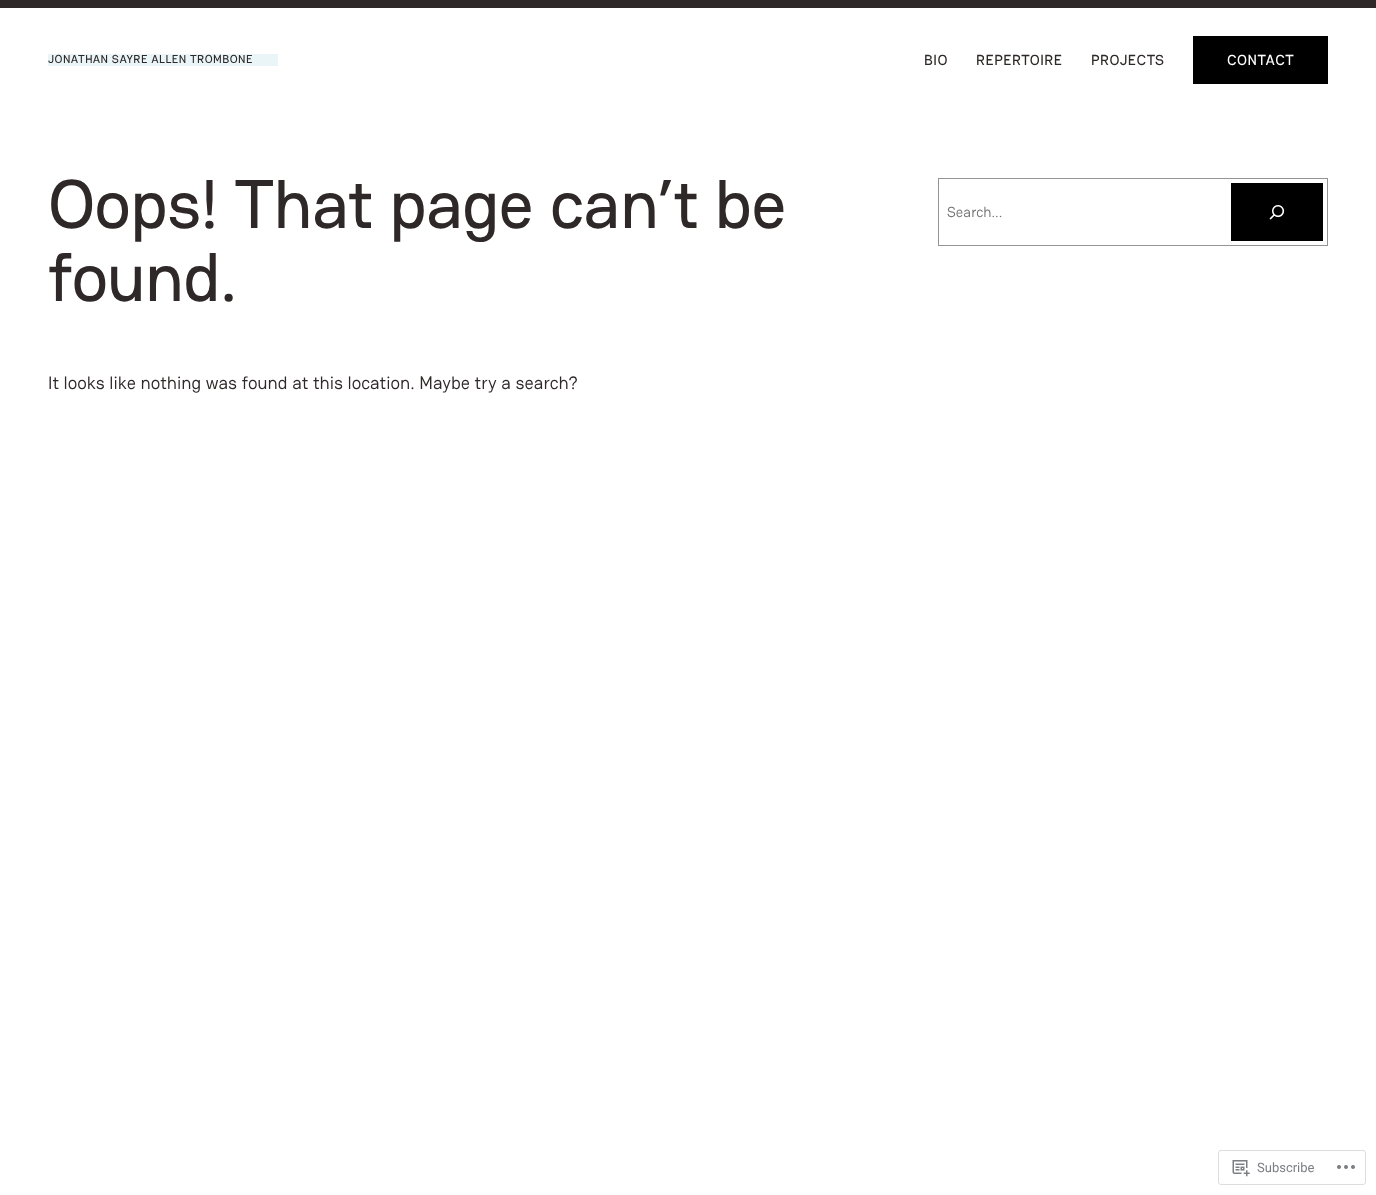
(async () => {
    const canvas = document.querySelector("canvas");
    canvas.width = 1376;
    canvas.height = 1195;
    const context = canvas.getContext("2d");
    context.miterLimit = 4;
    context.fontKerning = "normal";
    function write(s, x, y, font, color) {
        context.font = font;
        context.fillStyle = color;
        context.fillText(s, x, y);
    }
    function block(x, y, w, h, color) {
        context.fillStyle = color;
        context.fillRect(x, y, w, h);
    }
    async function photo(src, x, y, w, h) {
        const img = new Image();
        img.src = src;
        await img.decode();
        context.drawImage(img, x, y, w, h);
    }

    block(0, 0, 1376, 1195, "rgb(255, 255, 255)");
    block(0, 0, 1376, 8, "rgb(47, 40, 40)");
    block(48, 54, 230, 12, "rgb(234, 245, 247)");
    context.letterSpacing = "0.45px";
    write("JONATHAN SAYRE ALLEN TROMBONE", 48, 63, "500 11.5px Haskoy", "rgb(47, 40, 40)");
    context.letterSpacing = "0.5px";
    write("BIO", 924, 65, "500 14.5px Haskoy", "rgb(47, 40, 40)");
    write("REPERTOIRE", 976, 65, "500 14.5px Haskoy", "rgb(47, 40, 40)");
    write("PROJECTS", 1091, 65, "500 14.5px Haskoy", "rgb(47, 40, 40)");
    block(1193, 36, 135, 48, "rgb(0, 0, 0)");
    write("CONTACT", 1227, 65, "500 14.5px Haskoy", "rgb(255, 255, 255)");
    context.letterSpacing = "-0.7px";
    write("Oops! That page can’t be", 48, 228, "500 68.75px Haskoy", "rgb(47, 40, 40)");
    write("found.", 48, 301, "500 68.75px Haskoy", "rgb(47, 40, 40)");
    context.strokeStyle = "rgb(148, 148, 148)";
    context.strokeRect(938.5, 178.5, 389, 67);
    context.letterSpacing = "0px";
    write("Search...", 947, 217, "14.5px Haskoy", "rgb(117, 117, 117)");
    block(1231, 183, 92, 58, "rgb(0, 0, 0)");
    await photo("media/1.png", 1269, 205, 16, 15);
    write("It looks like nothing was found at this location. Maybe try a search?", 48, 389, "18px Haskoy", "rgb(47, 40, 40)");
    context.beginPath();
    context.roundRect(1218.5, 1150.5, 147, 34, 2.5);
    context.strokeStyle = "rgb(221, 221, 223)";
    context.stroke();
    await photo("media/2.png", 1232, 1160, 18, 17);
    write("Subscribe", 1257, 1172, "13px Roboto", "rgb(123, 127, 133)");
    await photo("media/3.png", 1337, 1165, 18, 4);
})();
